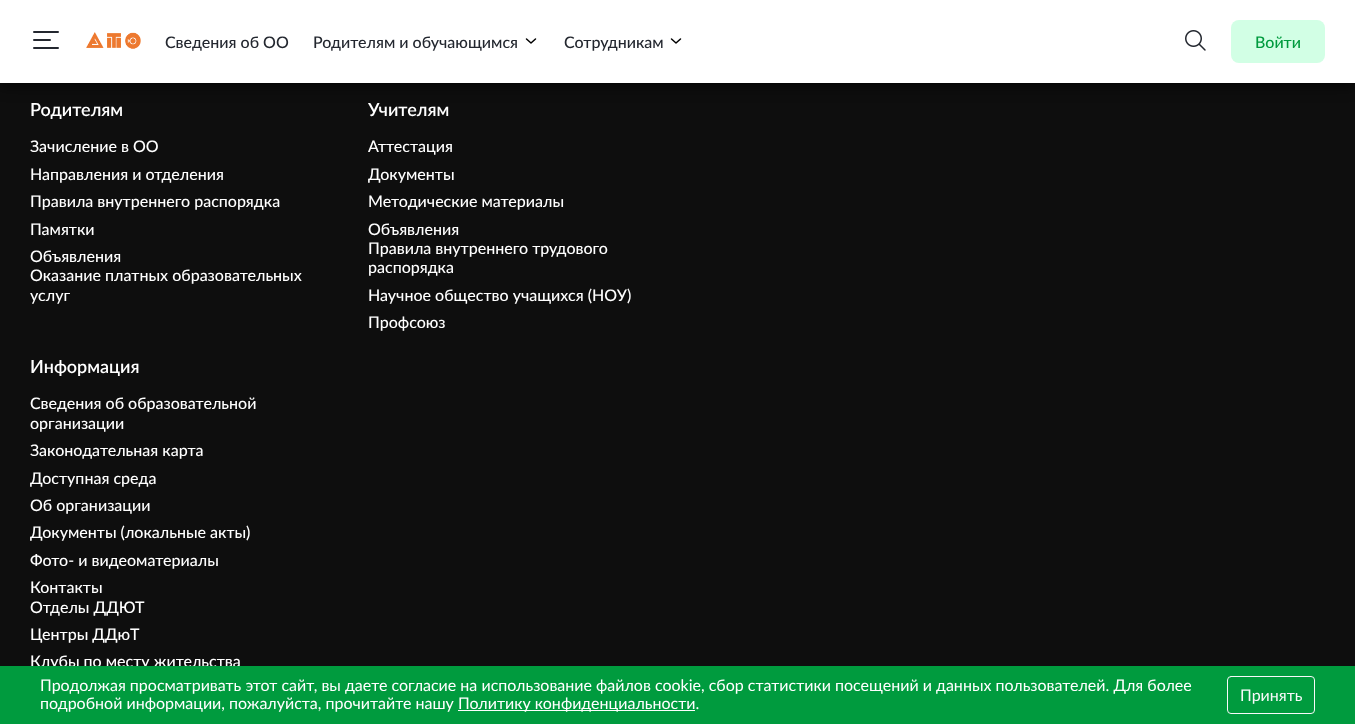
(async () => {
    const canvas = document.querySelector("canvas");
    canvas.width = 1355;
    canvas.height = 724;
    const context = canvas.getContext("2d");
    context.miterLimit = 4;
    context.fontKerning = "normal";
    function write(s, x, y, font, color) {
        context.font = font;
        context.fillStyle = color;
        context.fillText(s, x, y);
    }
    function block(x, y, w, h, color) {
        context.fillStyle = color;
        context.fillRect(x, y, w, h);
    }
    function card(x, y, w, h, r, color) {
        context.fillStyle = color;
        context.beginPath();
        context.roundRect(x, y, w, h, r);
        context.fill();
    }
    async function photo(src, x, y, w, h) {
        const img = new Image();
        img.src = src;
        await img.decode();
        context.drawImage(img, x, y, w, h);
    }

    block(0, 0, 1355, 724, "rgb(14, 14, 14)");
    context.fillStyle = "rgba(0, 0, 0, 0.75)";
    context.filter = "blur(7.5px)";
    context.beginPath();
    context.rect(0, 2, 1355, 83);
    context.fill();
    context.filter = "none";
    block(0, 0, 1355, 83, "rgb(255, 255, 255)");
    context.beginPath();
    context.moveTo(34, 40);
    context.lineTo(50, 40);
    context.moveTo(34, 32);
    context.lineTo(58, 32);
    context.moveTo(34, 48);
    context.lineTo(58, 48);
    context.strokeStyle = "rgb(35, 39, 47)";
    context.lineWidth = 2;
    context.lineCap = "round";
    context.lineJoin = "round";
    context.stroke();
    await photo("media/1.png", 86, 32, 55, 17);
    write("Сведения об ОО", 165, 48, "500 16px Lato", "rgb(35, 39, 47)");
    write("Родителям и обучающимся", 313, 48, "500 16px Lato", "rgb(35, 39, 47)");
    context.beginPath();
    context.moveTo(526.5, 39);
    context.lineTo(531, 43);
    context.lineTo(535.5, 39);
    context.strokeStyle = "rgb(0, 0, 0)";
    context.lineWidth = 1.5;
    context.stroke();
    write("Сотрудникам", 564, 48, "500 16px Lato", "rgb(35, 39, 47)");
    context.beginPath();
    context.moveTo(671.5, 39);
    context.lineTo(676, 43);
    context.lineTo(680.5, 39);
    context.stroke();
    await photo("media/2.png", 1185, 30, 21, 21);
    card(1231, 20, 94, 43, 8, "rgb(210, 255, 229)");
    write("Войти", 1255, 48, "500 16px Lato", "rgb(0, 155, 62)");
    write("Родителям", 30, 116, "600 18px Lato", "rgb(255, 255, 255)");
    write("Зачисление в ОО", 30, 152, "500 16px Lato", "rgb(255, 255, 255)");
    write("Направления и отделения", 30, 180, "500 16px Lato", "rgb(255, 255, 255)");
    write("Правила внутреннего распорядка", 30, 207, "500 16px Lato", "rgb(255, 255, 255)");
    write("Памятки", 30, 235, "500 16px Lato", "rgb(255, 255, 255)");
    write("Объявления", 30, 262, "500 16px Lato", "rgb(255, 255, 255)");
    write("Оказание платных образовательных", 30, 281, "500 16px Lato", "rgb(255, 255, 255)");
    write("услуг", 30, 301, "500 16px Lato", "rgb(255, 255, 255)");
    write("Учителям", 368, 116, "600 18px Lato", "rgb(255, 255, 255)");
    write("Аттестация", 368, 152, "500 16px Lato", "rgb(255, 255, 255)");
    write("Документы", 368, 180, "500 16px Lato", "rgb(255, 255, 255)");
    write("Методические материалы", 368, 207, "500 16px Lato", "rgb(255, 255, 255)");
    write("Объявления", 368, 235, "500 16px Lato", "rgb(255, 255, 255)");
    write("Правила внутреннего трудового", 368, 254, "500 16px Lato", "rgb(255, 255, 255)");
    write("распорядка", 368, 273, "500 16px Lato", "rgb(255, 255, 255)");
    write("Научное общество учащихся (НОУ)", 368, 301, "500 16px Lato", "rgb(255, 255, 255)");
    write("Профсоюз", 368, 328, "500 16px Lato", "rgb(255, 255, 255)");
    write("Информация", 30, 373, "600 18px Lato", "rgb(255, 255, 255)");
    write("Сведения об образовательной", 30, 409, "500 16px Lato", "rgb(255, 255, 255)");
    write("организации", 30, 429, "500 16px Lato", "rgb(255, 255, 255)");
    write("Законодательная карта", 30, 456, "500 16px Lato", "rgb(255, 255, 255)");
    write("Доступная среда", 30, 484, "500 16px Lato", "rgb(255, 255, 255)");
    write("Об организации", 30, 511, "500 16px Lato", "rgb(255, 255, 255)");
    write("Документы (локальные акты)", 30, 538, "500 16px Lato", "rgb(255, 255, 255)");
    write("Фото- и видеоматериалы", 30, 566, "500 16px Lato", "rgb(255, 255, 255)");
    write("Контакты", 30, 593, "500 16px Lato", "rgb(255, 255, 255)");
    write("Отделы ДДЮТ", 30, 613, "500 16px Lato", "rgb(255, 255, 255)");
    write("Центры ДДюТ", 30, 640, "500 16px Lato", "rgb(255, 255, 255)");
    write("Клубы по месту жительства", 30, 667, "500 16px Lato", "rgb(255, 255, 255)");
    block(0, 666, 1355, 58, "rgb(0, 155, 62)");
    write("Продолжая просматривать этот сайт, вы даете согласие на использование файлов cookie, сбор статистики посещений и данных пользователей. Для более", 40, 691, "16px Lato", "rgb(255, 255, 255)");
    write("подробной информации, пожалуйста, прочитайте нашу", 40, 709, "16px Lato", "rgb(255, 255, 255)");
    block(458, 710, 237, 1, "rgb(255, 255, 255)");
    write("Политику конфиденциальности.", 458, 709, "16px Lato", "rgb(255, 255, 255)");
    context.beginPath();
    context.roundRect(1227.5, 676.5, 87, 37, 3.5);
    context.strokeStyle = "rgb(248, 249, 250)";
    context.lineWidth = 1;
    context.lineJoin = "miter";
    context.stroke();
    write("Принять", 1240, 701, "16px Lato", "rgb(248, 249, 250)");
})();
